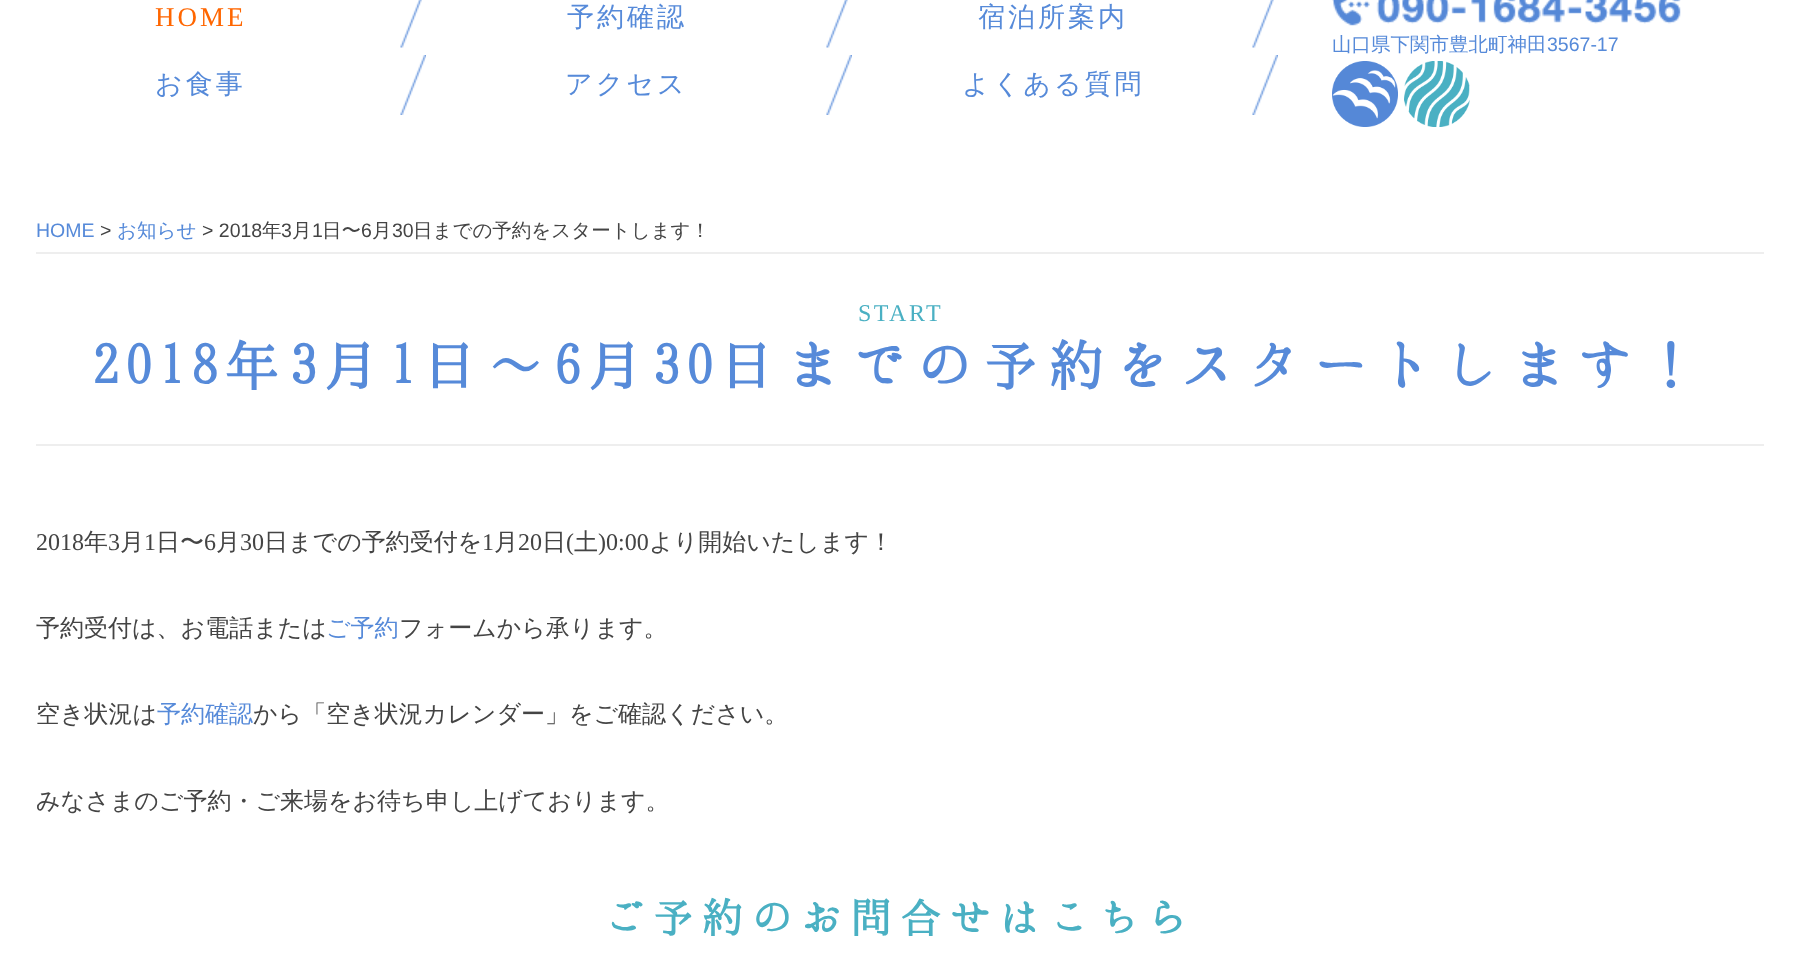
(async () => {
    const canvas = document.querySelector("canvas");
    canvas.width = 1800;
    canvas.height = 954;
    const context = canvas.getContext("2d");
    context.miterLimit = 4;
    context.fontKerning = "normal";
    function write(s, x, y, font, color) {
        context.font = font;
        context.fillStyle = color;
        context.fillText(s, x, y);
    }
    function block(x, y, w, h, color) {
        context.fillStyle = color;
        context.fillRect(x, y, w, h);
    }
    async function photo(src, x, y, w, h) {
        const img = new Image();
        img.src = src;
        await img.decode();
        context.drawImage(img, x, y, w, h);
    }

    block(0, 0, 1800, 954, "rgb(255, 255, 255)");
    context.letterSpacing = "3px";
    write("HOME", 155, 26, "27px Liberation Serif", "rgb(255, 102, 0)");
    await photo("media/1.png", 400, 0, 22, 48);
    write("予約確認", 567, 26, "500 27px WenQuanYi Zen Hei", "rgb(86, 138, 217)");
    await photo("media/2.png", 826, 0, 22, 48);
    write("宿泊所案内", 978, 26, "500 27px WenQuanYi Zen Hei", "rgb(86, 138, 217)");
    await photo("media/2.png", 1252, 0, 22, 48);
    write("お食事", 155, 93, "500 27px WenQuanYi Zen Hei", "rgb(86, 138, 217)");
    await photo("media/3.png", 400, 55, 26, 60);
    write("アクセス", 565, 93, "500 27px WenQuanYi Zen Hei", "rgb(86, 138, 217)");
    await photo("media/4.png", 826, 55, 26, 60);
    write("よくある質問", 962, 93, "500 27px WenQuanYi Zen Hei", "rgb(86, 138, 217)");
    await photo("media/4.png", 1252, 55, 26, 60);
    await photo("media/5.png", 1332, 0, 349, 26);
    context.letterSpacing = "0px";
    write("山口県下関市豊北町神田", 1332, 51, "500 19.5px WenQuanYi Zen Hei", "rgb(86, 138, 217)");
    write("3567-17", 1547, 51, "19.5px Liberation Sans", "rgb(86, 138, 217)");
    await photo("media/6.png", 1332, 61, 66, 66);
    await photo("media/7.png", 1404, 61, 66, 66);
    block(36, 252, 1728, 2, "rgb(238, 238, 238)");
    write("HOME", 36, 237, "19.5px Liberation Sans", "rgb(86, 138, 217)");
    write(">", 100, 237, "19.5px Liberation Sans", "rgb(68, 68, 68)");
    write("お知らせ", 117, 237, "500 19.5px WenQuanYi Zen Hei", "rgb(86, 138, 217)");
    write("> 2018", 202, 237, "19.5px Liberation Sans", "rgb(68, 68, 68)");
    write("年", 262, 237, "500 19.5px WenQuanYi Zen Hei", "rgb(68, 68, 68)");
    write("3", 281, 237, "19.5px Liberation Sans", "rgb(68, 68, 68)");
    write("月", 292, 237, "500 19.5px WenQuanYi Zen Hei", "rgb(68, 68, 68)");
    write("1", 312, 237, "19.5px Liberation Sans", "rgb(68, 68, 68)");
    write("日〜", 322, 237, "500 19.5px WenQuanYi Zen Hei", "rgb(68, 68, 68)");
    write("6", 361, 237, "19.5px Liberation Sans", "rgb(68, 68, 68)");
    write("月", 372, 237, "500 19.5px WenQuanYi Zen Hei", "rgb(68, 68, 68)");
    write("30", 392, 237, "19.5px Liberation Sans", "rgb(68, 68, 68)");
    write("日までの予約をスタートします！", 413, 237, "500 19.5px WenQuanYi Zen Hei", "rgb(68, 68, 68)");
    block(36, 444, 1728, 2, "rgb(238, 238, 238)");
    context.letterSpacing = "2.5px";
    write("START", 858, 321, "24px Liberation Serif", "rgb(74, 176, 195)");
    context.letterSpacing = "6px";
    write("2018年3月1日〜6月30日までの予約をスタートします！", 92, 386, "bold 60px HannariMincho", "rgb(86, 138, 217)");
    context.letterSpacing = "0px";
    write("2018", 36, 550, "24px Liberation Serif", "rgb(68, 68, 68)");
    write("年", 84, 550, "500 24px WenQuanYi Zen Hei", "rgb(68, 68, 68)");
    write("3", 108, 550, "24px Liberation Serif", "rgb(68, 68, 68)");
    write("月", 120, 550, "500 24px WenQuanYi Zen Hei", "rgb(68, 68, 68)");
    write("1", 144, 550, "24px Liberation Serif", "rgb(68, 68, 68)");
    write("日〜", 156, 550, "500 24px WenQuanYi Zen Hei", "rgb(68, 68, 68)");
    write("6", 204, 550, "24px Liberation Serif", "rgb(68, 68, 68)");
    write("月", 216, 550, "500 24px WenQuanYi Zen Hei", "rgb(68, 68, 68)");
    write("30", 240, 550, "24px Liberation Serif", "rgb(68, 68, 68)");
    write("日までの予約受付を", 264, 550, "500 24px WenQuanYi Zen Hei", "rgb(68, 68, 68)");
    write("1", 482, 550, "24px Liberation Serif", "rgb(68, 68, 68)");
    write("月", 494, 550, "500 24px WenQuanYi Zen Hei", "rgb(68, 68, 68)");
    write("20", 518, 550, "24px Liberation Serif", "rgb(68, 68, 68)");
    write("日", 542, 550, "500 24px WenQuanYi Zen Hei", "rgb(68, 68, 68)");
    write("(", 566, 550, "24px Liberation Serif", "rgb(68, 68, 68)");
    write("土", 574, 550, "500 24px WenQuanYi Zen Hei", "rgb(68, 68, 68)");
    write(")0:00", 598, 550, "24px Liberation Serif", "rgb(68, 68, 68)");
    write("より開始いたします！", 649, 550, "500 24px WenQuanYi Zen Hei", "rgb(68, 68, 68)");
    write("予約受付は、お電話または", 36, 636, "500 24px WenQuanYi Zen Hei", "rgb(68, 68, 68)");
    write("ご予約", 326, 636, "500 24px WenQuanYi Zen Hei", "rgb(86, 138, 217)");
    write("フォームから承ります。", 399, 636, "500 24px WenQuanYi Zen Hei", "rgb(68, 68, 68)");
    write("空き状況は", 36, 722, "500 24px WenQuanYi Zen Hei", "rgb(68, 68, 68)");
    write("予約確認", 157, 722, "500 24px WenQuanYi Zen Hei", "rgb(86, 138, 217)");
    write("から「空き状況カレンダー」をご確認ください。", 253, 722, "500 24px WenQuanYi Zen Hei", "rgb(68, 68, 68)");
    write("みなさまのご予約・ご来場をお待ち申し上げております。", 36, 809, "500 24px WenQuanYi Zen Hei", "rgb(68, 68, 68)");
    context.letterSpacing = "4.5px";
    write("ご予約のお問合せはこちら", 603, 933, "bold 45px HannariMincho", "rgb(74, 176, 195)");
})();
